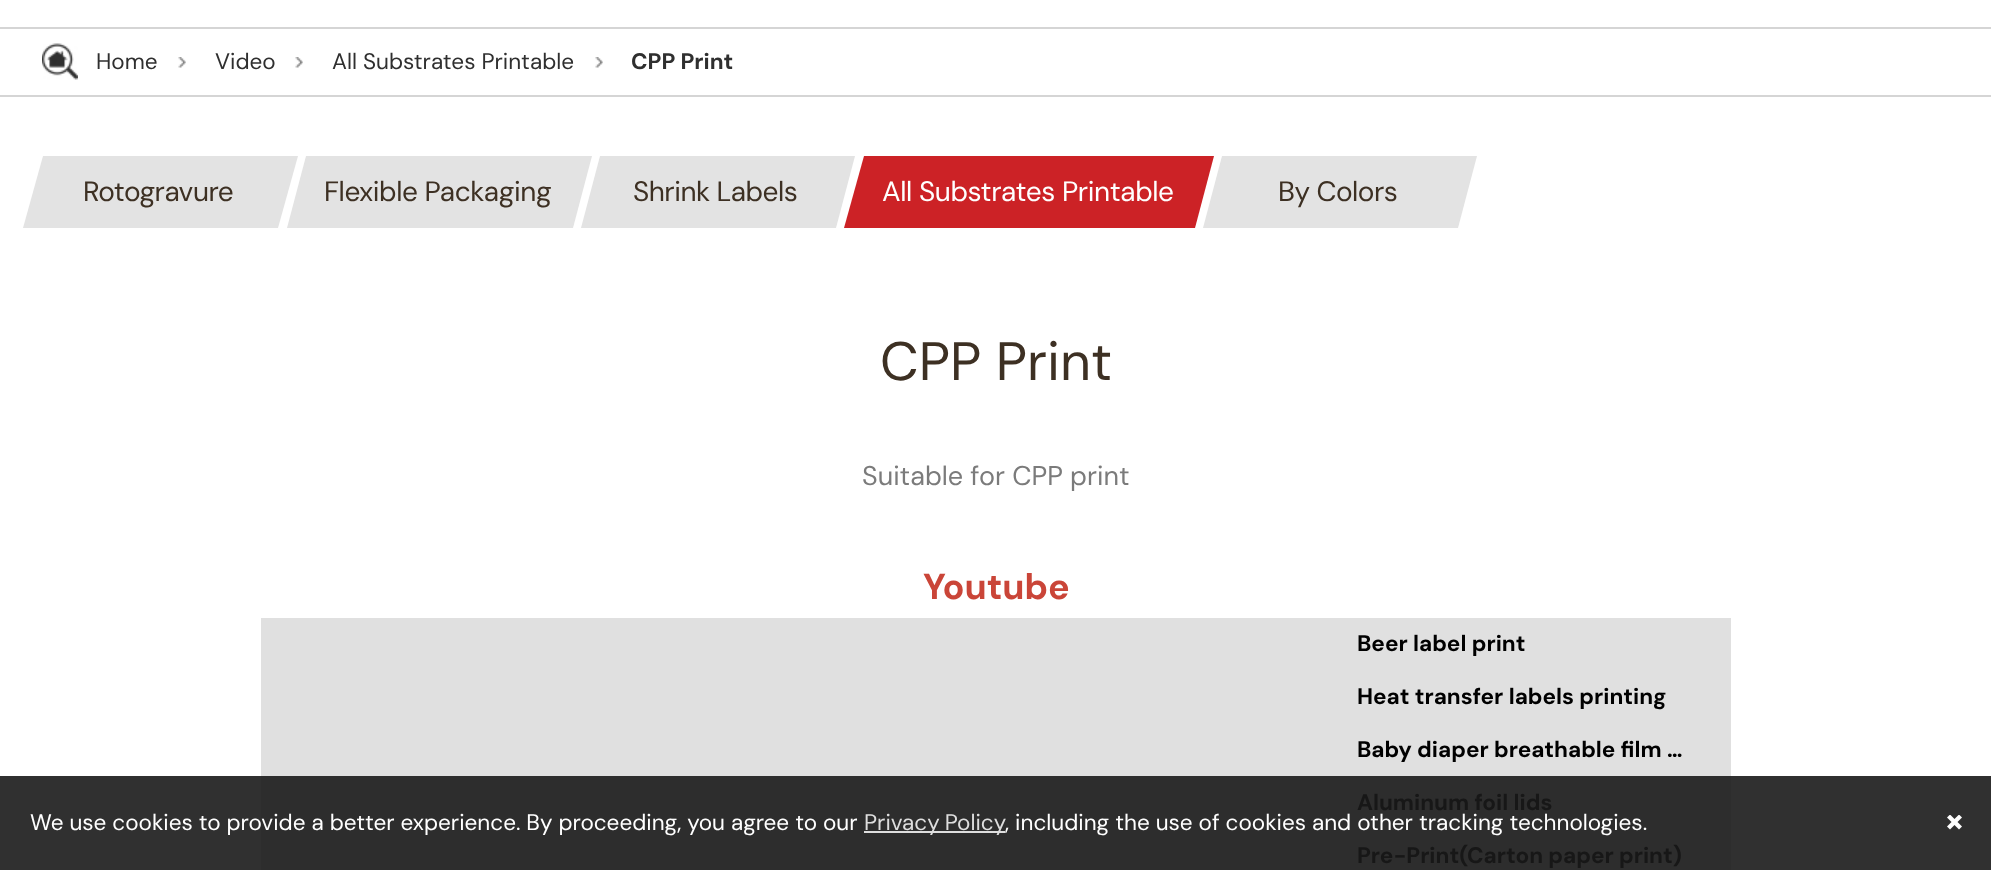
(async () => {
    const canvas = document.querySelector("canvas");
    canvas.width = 1991;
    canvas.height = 870;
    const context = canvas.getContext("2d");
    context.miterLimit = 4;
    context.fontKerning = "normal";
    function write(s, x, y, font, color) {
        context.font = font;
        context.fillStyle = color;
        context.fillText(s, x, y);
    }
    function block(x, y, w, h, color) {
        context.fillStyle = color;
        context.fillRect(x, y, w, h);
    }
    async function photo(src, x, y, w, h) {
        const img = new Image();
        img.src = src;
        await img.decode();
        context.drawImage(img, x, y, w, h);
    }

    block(0, 0, 1991, 870, "rgb(255, 255, 255)");
    block(0, 776, 1991, 94, "rgb(48, 48, 48)");
    block(0, 27, 1991, 2, "rgb(213, 213, 213)");
    block(0, 95, 1991, 2, "rgb(213, 213, 213)");
    await photo("media/1.png", 42, 43, 36, 37);
    write("Home", 96, 69, "22.5px DM Sans", "rgb(47, 47, 47)");
    await photo("media/2.png", 178, 57, 8, 11);
    write("Video", 215, 69, "22.5px DM Sans", "rgb(47, 47, 47)");
    await photo("media/3.png", 295, 57, 8, 11);
    write("All Substrates Printable", 332, 69, "22.5px DM Sans", "rgb(47, 47, 47)");
    await photo("media/3.png", 595, 57, 8, 11);
    write("CPP Print", 631, 69, "bold 22.5px DM Sans", "rgb(47, 47, 47)");
    context.fillStyle = "rgb(227, 227, 227)";
    context.beginPath();
    context.moveTo(43, 156);
    context.lineTo(298, 156);
    context.lineTo(278, 228);
    context.lineTo(23, 228);
    context.closePath();
    context.fill();
    context.letterSpacing = "-0.5px";
    write("Rotogravure", 83, 201, "28px DM Sans", "rgb(61, 48, 35)");
    context.fillStyle = "rgb(227, 227, 227)";
    context.beginPath();
    context.moveTo(306, 156);
    context.lineTo(592, 156);
    context.lineTo(573, 228);
    context.lineTo(287, 228);
    context.closePath();
    context.fill();
    context.letterSpacing = "-0.4px";
    write("Flexible Packaging", 324, 201, "28px DM Sans", "rgb(61, 48, 35)");
    context.fillStyle = "rgb(227, 227, 227)";
    context.beginPath();
    context.moveTo(600, 156);
    context.lineTo(855, 156);
    context.lineTo(836, 228);
    context.lineTo(581, 228);
    context.closePath();
    context.fill();
    context.letterSpacing = "-0.5px";
    write("Shrink Labels", 633, 201, "28px DM Sans", "rgb(61, 48, 35)");
    context.fillStyle = "rgb(204, 34, 38)";
    context.beginPath();
    context.moveTo(864, 156);
    context.lineTo(1214, 156);
    context.lineTo(1195, 228);
    context.lineTo(844, 228);
    context.closePath();
    context.fill();
    context.letterSpacing = "-0.4px";
    write("All Substrates Printable", 882, 201, "28px DM Sans", "rgb(255, 255, 255)");
    context.fillStyle = "rgb(227, 227, 227)";
    context.beginPath();
    context.moveTo(1222, 156);
    context.lineTo(1477, 156);
    context.lineTo(1458, 228);
    context.lineTo(1203, 228);
    context.closePath();
    context.fill();
    context.letterSpacing = "-0.5px";
    write("By Colors", 1278, 201, "28px DM Sans", "rgb(61, 48, 35)");
    context.letterSpacing = "0px";
    write("CPP Print", 880, 380, "54px DM Sans", "rgb(61, 48, 35)");
    write("Suitable for CPP print", 862, 485, "27px DM Sans", "rgb(123, 123, 123)");
    write("Youtube", 923, 599, "bold 36px DM Sans", "rgb(202, 69, 56)");
    block(261, 618, 1470, 158, "rgb(224, 224, 224)");
    block(261, 776, 1470, 94, "rgb(45, 45, 45)");
    write("Beer label print", 1357, 651, "bold 22.5px DM Sans", "rgb(0, 0, 0)");
    write("Heat transfer labels printing", 1357, 704, "bold 22.5px DM Sans", "rgb(0, 0, 0)");
    write("Baby diaper breathable film …", 1357, 757, "bold 22.5px DM Sans", "rgb(0, 0, 0)");
    write("Aluminum foil lids", 1357, 810, "bold 22.5px DM Sans", "rgb(23, 23, 23)");
    write("Pre-Print(Carton paper print)", 1357, 863, "bold 22.5px DM Sans", "rgb(23, 23, 23)");
    write("We use cookies to provide a better experience. By proceeding, you agree to our", 30, 830, "22.5px DM Sans", "rgb(255, 255, 255)");
    block(864, 831, 141, 2, "rgb(222, 222, 222)");
    context.wordSpacing = "-1px";
    write("Privacy Policy", 864, 830, "22.5px DM Sans", "rgb(222, 222, 222)");
    context.wordSpacing = "0px";
    write(", including the use of cookies and other tracking technologies.", 1005, 830, "22.5px DM Sans", "rgb(255, 255, 255)");
    await photo("media/4.png", 1947, 815, 15, 15);
})();
